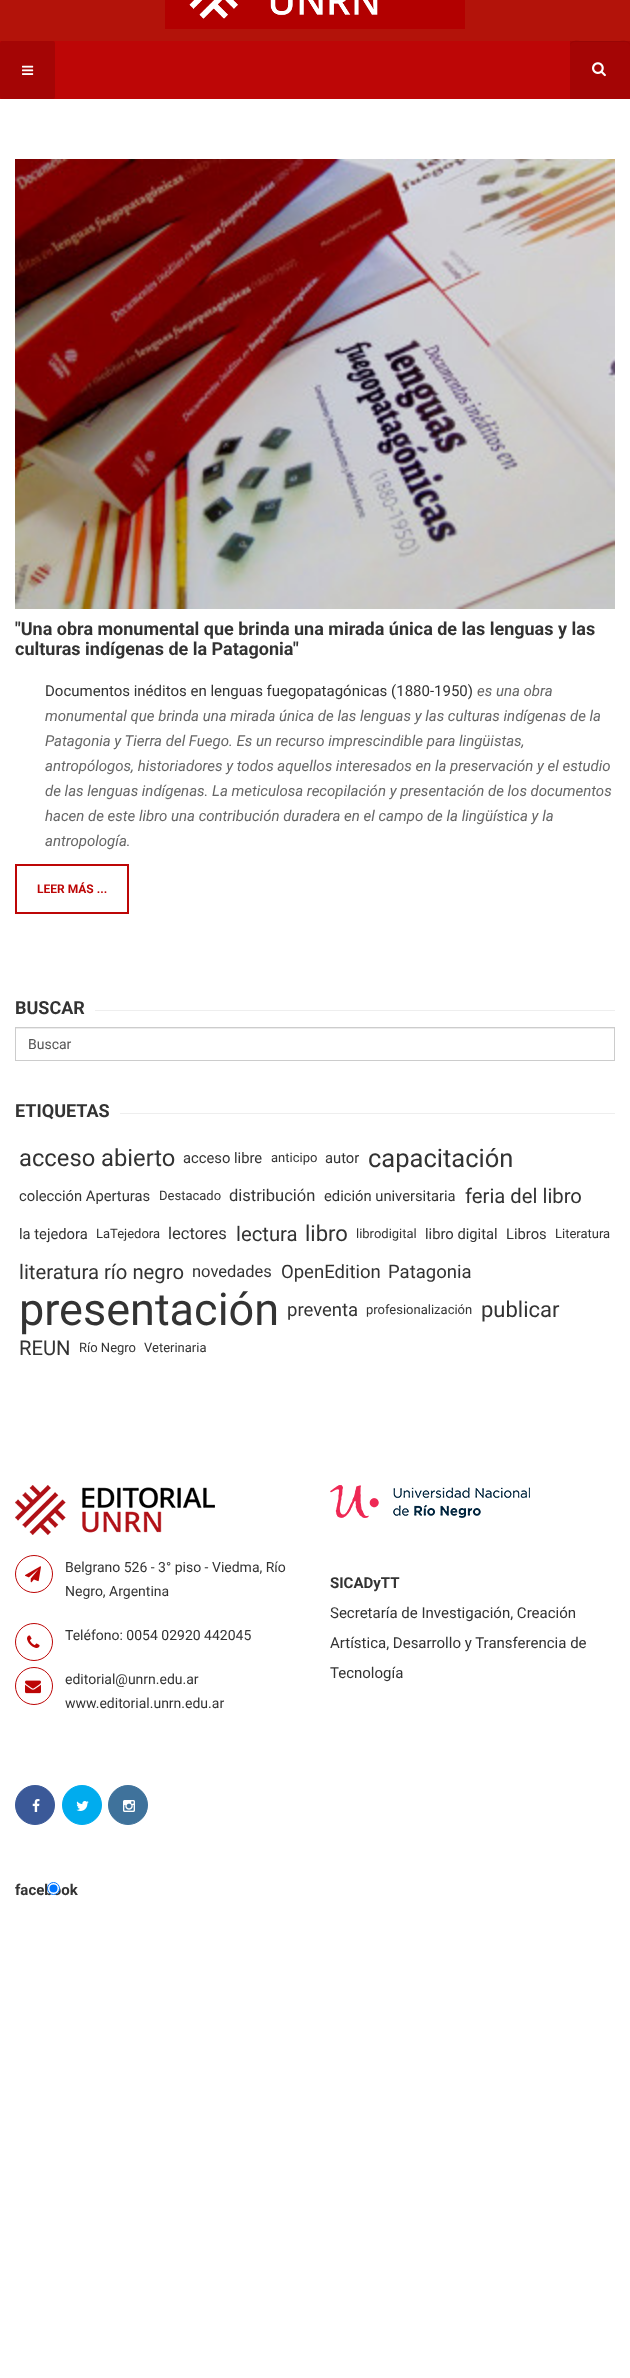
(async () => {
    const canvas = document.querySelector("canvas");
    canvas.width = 630;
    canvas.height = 2378;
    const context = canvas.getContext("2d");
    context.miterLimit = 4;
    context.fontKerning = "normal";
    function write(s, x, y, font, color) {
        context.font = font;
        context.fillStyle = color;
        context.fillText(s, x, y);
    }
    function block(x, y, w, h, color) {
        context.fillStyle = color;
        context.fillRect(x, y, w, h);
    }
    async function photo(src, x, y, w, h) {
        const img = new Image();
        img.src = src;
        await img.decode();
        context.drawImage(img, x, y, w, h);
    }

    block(0, 0, 630, 2378, "rgb(255, 255, 255)");
    block(0, 0, 630, 41, "rgb(179, 19, 10)");
    await photo("media/1.png", 165, 0, 300, 29);
    block(0, 41, 570, 58, "rgb(189, 6, 6)");
    context.fillStyle = "rgb(164, 5, 5)";
    context.beginPath();
    context.roundRect(1, 42, 53, 56, 1);
    context.fill();
    context.strokeStyle = "rgb(164, 5, 5)";
    context.lineWidth = 2;
    context.stroke();
    await photo("media/2.png", 22, 65, 12, 10);
    block(570, 41, 60, 58, "rgb(164, 5, 5)");
    context.fillStyle = "rgb(152, 5, 5)";
    context.beginPath();
    context.moveTo(574, 42);
    context.lineTo(626, 42);
    context.bezierCurveTo(628, 42, 630, 44, 630, 46);
    context.bezierCurveTo(630, 39, 622, 41, 617, 41);
    context.lineTo(583, 41);
    context.bezierCurveTo(578, 41, 570, 39, 570, 46);
    context.bezierCurveTo(570, 44, 572, 42, 574, 42);
    context.closePath();
    context.fill();
    await photo("media/3.png", 592, 62, 14, 15);
    await photo("media/4.png", 15, 159, 600, 450);
    write("\"Una obra monumental que brinda una mirada única de las lenguas y las", 15, 635, "bold 18px Roboto", "rgb(51, 51, 51)");
    write("culturas indígenas de la Patagonia\"", 15, 655, "bold 18px Roboto", "rgb(51, 51, 51)");
    write("Documentos inéditos en lenguas fuegopatagónicas (1880-1950)", 45, 696, "15px Roboto", "rgb(51, 51, 51)");
    write("es una obra", 477, 696, "italic 15px Roboto", "rgb(102, 102, 102)");
    write("monumental que brinda una mirada única de las lenguas y las culturas indígenas de la", 45, 721, "italic 15px Roboto", "rgb(102, 102, 102)");
    write("Patagonia y Tierra del Fuego. Es un recurso imprescindible para lingüistas,", 45, 746, "italic 15px Roboto", "rgb(102, 102, 102)");
    write("antropólogos, historiadores y todos aquellos interesados en la preservación y el estudio", 45, 771, "italic 15px Roboto", "rgb(102, 102, 102)");
    write("de las lenguas indígenas. La meticulosa recopilación y presentación de los documentos", 45, 796, "italic 15px Roboto", "rgb(102, 102, 102)");
    write("hacen de este libro una contribución duradera en el campo de la lingüística y la", 45, 821, "italic 15px Roboto", "rgb(102, 102, 102)");
    write("antropología.", 45, 846, "italic 15px Roboto", "rgb(102, 102, 102)");
    context.strokeStyle = "rgb(189, 6, 6)";
    context.strokeRect(16, 865, 112, 48);
    write("LEER MÁS ...", 37, 893, "bold 12px Roboto", "rgb(189, 6, 6)");
    write("BUSCAR", 15, 1014, "bold 18px Roboto", "rgb(51, 51, 51)");
    block(95, 1010, 520, 1, "rgb(238, 238, 238)");
    block(16, 1028, 598, 1, "rgb(236, 236, 236)");
    context.strokeStyle = "rgb(204, 204, 204)";
    context.lineWidth = 1;
    context.strokeRect(15.5, 1027.5, 599, 33);
    write("Buscar", 28, 1049, "14px Roboto", "rgb(85, 85, 85)");
    write("ETIQUETAS", 15, 1117, "bold 18px Roboto", "rgb(51, 51, 51)");
    block(120, 1113, 495, 1, "rgb(238, 238, 238)");
    write("acceso abierto", 19, 1166, "23.75px Roboto", "rgb(51, 51, 51)");
    write("acceso libre", 183, 1163, "14.75px Roboto", "rgb(51, 51, 51)");
    write("anticipo", 271, 1162, "13px Roboto", "rgb(51, 51, 51)");
    write("autor", 325, 1163, "14.75px Roboto", "rgb(51, 51, 51)");
    write("capacitación", 368, 1167, "25.5px Roboto", "rgb(51, 51, 51)");
    write("colección Aperturas", 19, 1201, "14.75px Roboto", "rgb(51, 51, 51)");
    write("Destacado", 159, 1200, "13px Roboto", "rgb(51, 51, 51)");
    write("distribución", 229, 1201, "16.5px Roboto", "rgb(51, 51, 51)");
    write("edición universitaria", 324, 1201, "14.75px Roboto", "rgb(51, 51, 51)");
    write("feria del libro", 465, 1203, "20.25px Roboto", "rgb(51, 51, 51)");
    write("la tejedora", 19, 1239, "14.75px Roboto", "rgb(51, 51, 51)");
    write("LaTejedora", 96, 1238, "13px Roboto", "rgb(51, 51, 51)");
    write("lectores", 168, 1239, "16.5px Roboto", "rgb(51, 51, 51)");
    write("lectura", 236, 1241, "20.25px Roboto", "rgb(51, 51, 51)");
    write("libro", 305, 1241, "22px Roboto", "rgb(51, 51, 51)");
    write("librodigital", 356, 1238, "13px Roboto", "rgb(51, 51, 51)");
    write("libro digital", 425, 1239, "14.75px Roboto", "rgb(51, 51, 51)");
    write("Libros", 506, 1239, "14.75px Roboto", "rgb(51, 51, 51)");
    write("Literatura", 555, 1238, "13px Roboto", "rgb(51, 51, 51)");
    write("literatura río negro", 19, 1279, "20.25px Roboto", "rgb(51, 51, 51)");
    write("novedades", 192, 1277, "16.5px Roboto", "rgb(51, 51, 51)");
    write("OpenEdition", 281, 1278, "18.5px Roboto", "rgb(51, 51, 51)");
    write("Patagonia", 388, 1278, "18.5px Roboto", "rgb(51, 51, 51)");
    write("presentación", 19, 1325, "45px Roboto", "rgb(51, 51, 51)");
    write("preventa", 287, 1316, "18.5px Roboto", "rgb(51, 51, 51)");
    write("profesionalización", 366, 1314, "13px Roboto", "rgb(51, 51, 51)");
    write("publicar", 481, 1317, "22px Roboto", "rgb(51, 51, 51)");
    write("REUN", 19, 1355, "20.25px Roboto", "rgb(51, 51, 51)");
    write("Río Negro", 79, 1352, "13px Roboto", "rgb(51, 51, 51)");
    write("Veterinaria", 144, 1352, "13px Roboto", "rgb(51, 51, 51)");
    await photo("media/5.png", 15, 1485, 200, 50);
    context.beginPath();
    context.arc(34, 1574, 18.5, 0, Math.PI * 2);
    context.strokeStyle = "rgb(189, 6, 6)";
    context.stroke();
    await photo("media/6.png", 25, 1566, 16, 17);
    write("Belgrano 526 - 3° piso - Viedma, Río", 65, 1572, "14px Roboto", "rgb(51, 51, 51)");
    write("Negro, Argentina", 65, 1596, "14px Roboto", "rgb(51, 51, 51)");
    context.beginPath();
    context.arc(34, 1642, 18.5, 0, Math.PI * 2);
    context.stroke();
    await photo("media/7.png", 27, 1635, 13, 13);
    write("Teléfono: 0054 02920 442045", 65, 1640, "14px Roboto", "rgb(51, 51, 51)");
    context.beginPath();
    context.arc(34, 1686, 18.5, 0, Math.PI * 2);
    context.stroke();
    await photo("media/8.png", 25, 1680, 16, 14);
    write("editorial@unrn.edu.ar", 65, 1684, "14px Roboto", "rgb(51, 51, 51)");
    write("www.editorial.unrn.edu.ar", 65, 1708, "14px Roboto", "rgb(51, 51, 51)");
    await photo("media/9.png", 330, 1485, 200, 33);
    write("SICADyTT", 330, 1588, "bold 15px Roboto", "rgb(51, 51, 51)");
    write("Secretaría de Investigación, Creación", 330, 1618, "15px Roboto", "rgb(51, 51, 51)");
    write("Artística, Desarrollo y Transferencia de", 330, 1648, "15px Roboto", "rgb(51, 51, 51)");
    write("Tecnología", 330, 1678, "15px Roboto", "rgb(51, 51, 51)");
    context.fillStyle = "rgb(59, 89, 152)";
    context.beginPath();
    context.arc(35, 1805, 19.5, 0, Math.PI * 2);
    context.fill();
    context.strokeStyle = "rgb(59, 89, 152)";
    context.stroke();
    await photo("media/10.png", 32, 1799, 8, 13);
    context.fillStyle = "rgb(0, 172, 238)";
    context.beginPath();
    context.arc(82, 1805, 19.5, 0, Math.PI * 2);
    context.fill();
    context.strokeStyle = "rgb(0, 172, 238)";
    context.stroke();
    await photo("media/11.png", 76, 1801, 13, 10);
    context.fillStyle = "rgb(63, 114, 155)";
    context.beginPath();
    context.arc(128, 1805, 19.5, 0, Math.PI * 2);
    context.fill();
    context.strokeStyle = "rgb(63, 114, 155)";
    context.stroke();
    await photo("media/12.png", 123, 1800, 12, 12);
    write("facebook", 15, 1895, "bold 15px Roboto", "rgb(51, 51, 51)");
    context.fillStyle = "rgb(255, 255, 255)";
    context.beginPath();
    context.arc(53.5, 1888.5, 6, 0, Math.PI * 2);
    context.fill();
    context.strokeStyle = "rgb(0, 117, 255)";
    context.stroke();
    context.fillStyle = "rgb(0, 117, 255)";
    context.beginPath();
    context.arc(53.5, 1888.5, 4, 0, Math.PI * 2);
    context.fill();
})();
